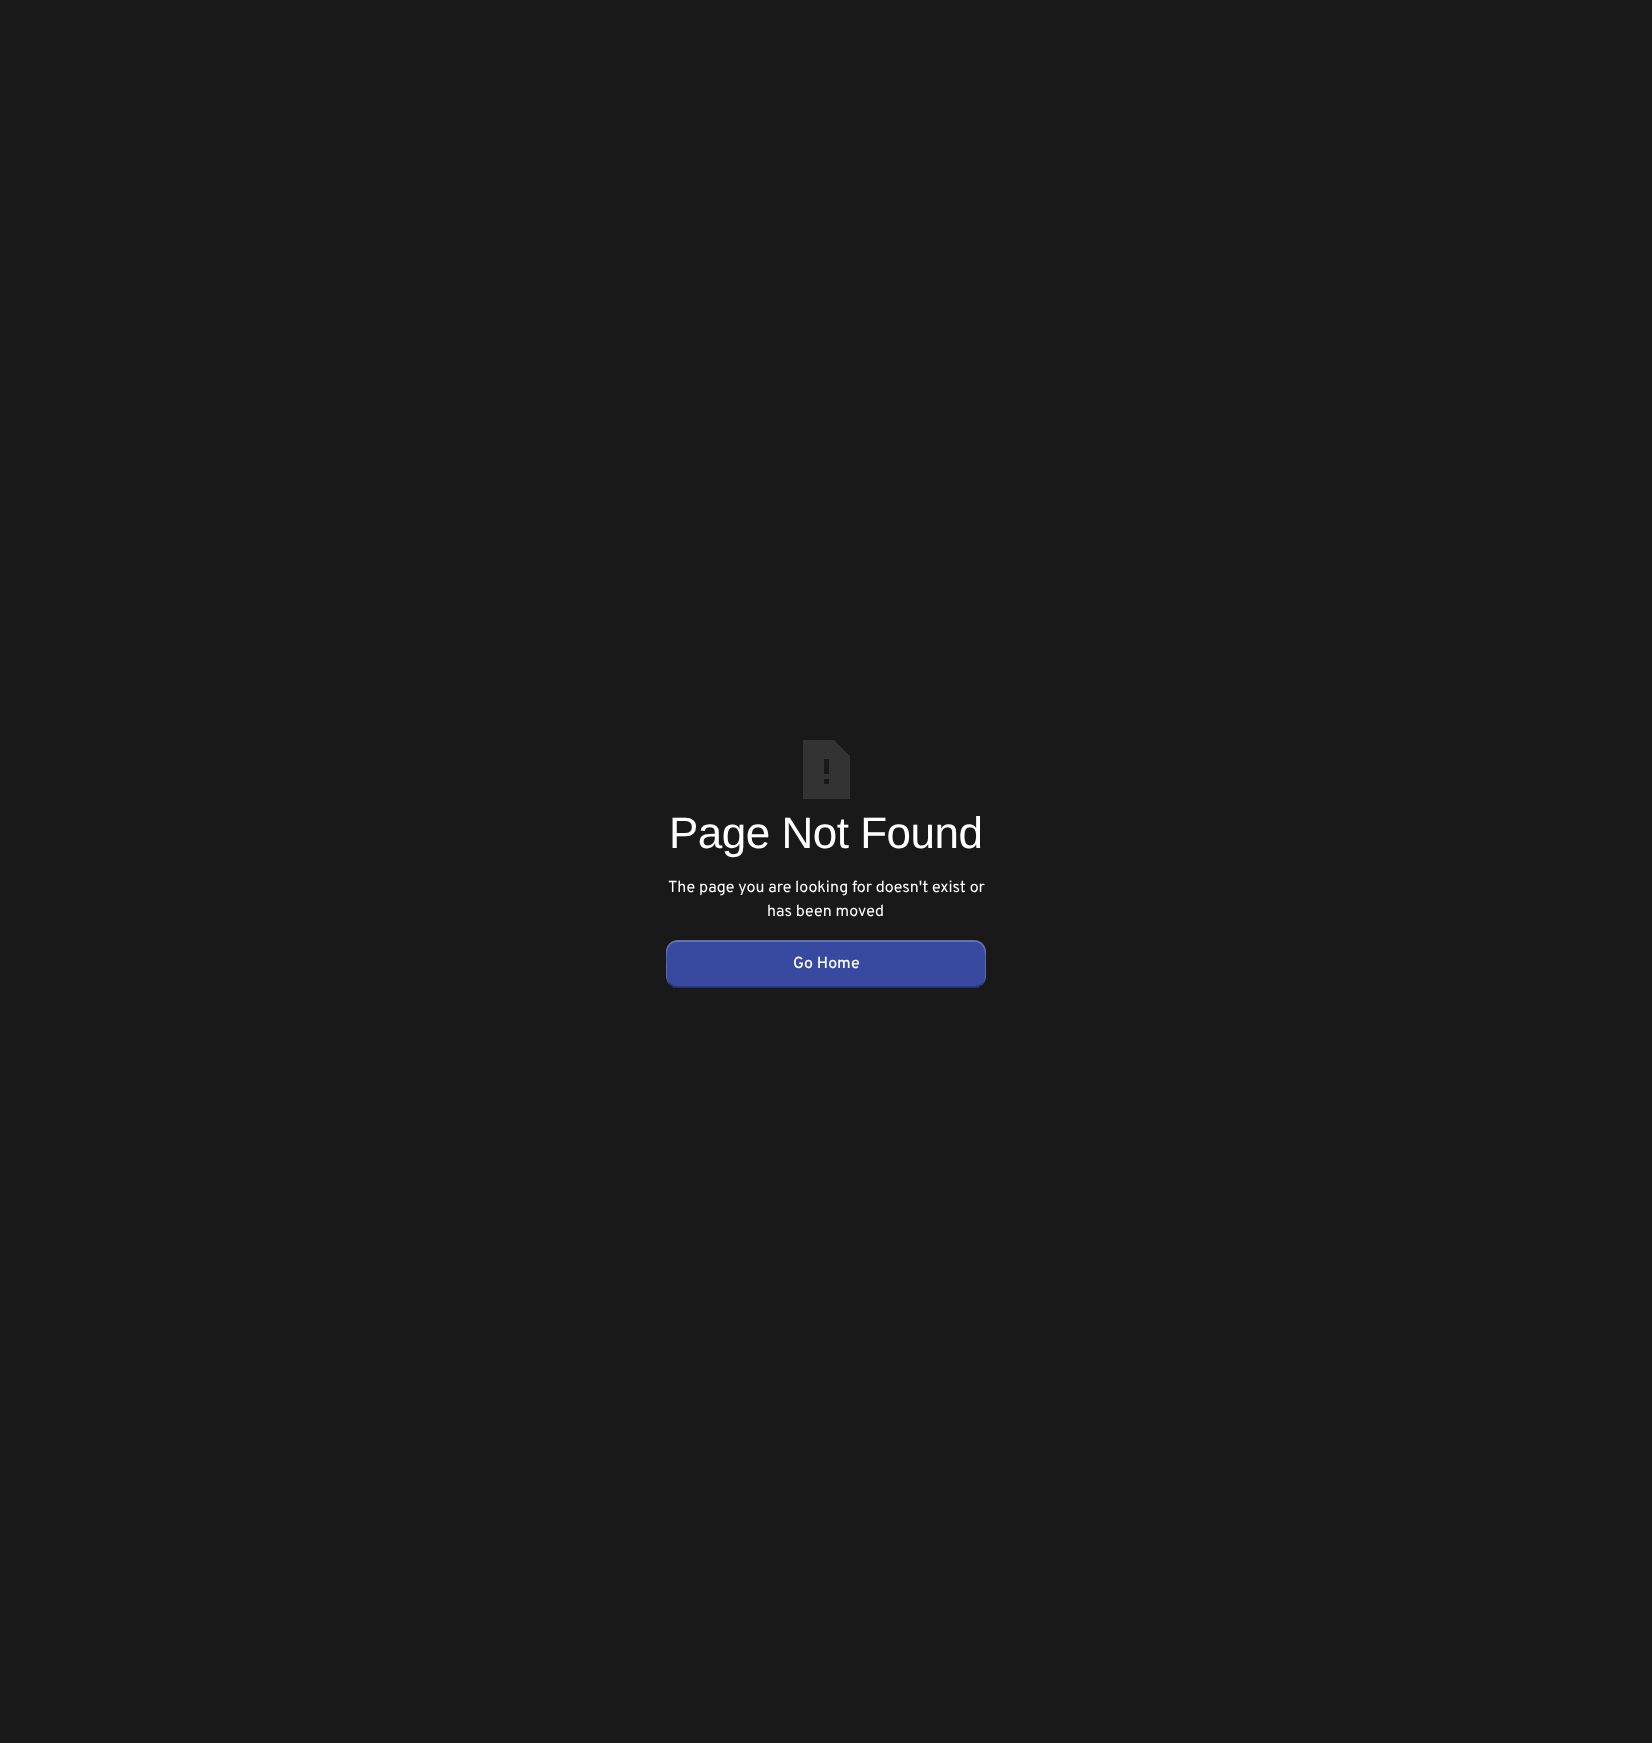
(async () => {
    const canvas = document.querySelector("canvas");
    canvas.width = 1652;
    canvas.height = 1743;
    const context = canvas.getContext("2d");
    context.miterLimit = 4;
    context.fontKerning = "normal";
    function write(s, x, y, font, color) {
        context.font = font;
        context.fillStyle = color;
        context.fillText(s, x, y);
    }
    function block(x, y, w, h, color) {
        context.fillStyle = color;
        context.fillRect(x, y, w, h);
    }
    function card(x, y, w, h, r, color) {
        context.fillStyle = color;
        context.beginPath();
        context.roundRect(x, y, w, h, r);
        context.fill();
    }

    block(0, 0, 1652, 1743, "rgb(25, 25, 25)");
    context.fillStyle = "rgb(51, 51, 51)";
    context.beginPath();
    context.moveTo(803, 740);
    context.lineTo(834, 740);
    context.lineTo(850, 756);
    context.lineTo(850, 799);
    context.lineTo(803, 799);
    context.closePath();
    context.moveTo(824, 759);
    context.lineTo(829, 759);
    context.lineTo(829, 774);
    context.lineTo(824, 774);
    context.closePath();
    context.moveTo(824, 779);
    context.lineTo(829, 779);
    context.lineTo(829, 784);
    context.lineTo(824, 784);
    context.closePath();
    context.fill("evenodd");
    context.letterSpacing = "-0.5px";
    write("Page Not Found", 669, 848, "44px Liberation Sans", "rgb(255, 255, 255)");
    context.letterSpacing = "0px";
    write("The page you are looking for doesn't exist or", 668, 892, "16px Overpass", "rgb(255, 255, 255)");
    write("has been moved", 767, 916, "16px Overpass", "rgb(255, 255, 255)");
    card(666, 940, 320, 48, 12, "rgb(55, 74, 159)");
    context.beginPath();
    context.roundRect(666.5, 940.5, 319, 47, 11.5);
    context.strokeStyle = "rgba(0, 0, 0, 0.15)";
    context.stroke();
    context.fillStyle = "rgba(255, 255, 255, 0.25)";
    context.beginPath();
    context.moveTo(678, 942);
    context.lineTo(976, 942);
    context.bezierCurveTo(987, 944, 985, 957, 985, 965);
    context.bezierCurveTo(985, 974, 987, 988, 974, 988);
    context.bezierCurveTo(981, 988, 986, 983, 986, 976);
    context.lineTo(986, 952);
    context.bezierCurveTo(986, 945, 981, 940, 974, 940);
    context.lineTo(678, 940);
    context.bezierCurveTo(671, 940, 666, 945, 666, 952);
    context.lineTo(666, 976);
    context.bezierCurveTo(666, 983, 671, 988, 678, 988);
    context.bezierCurveTo(665, 988, 667, 974, 667, 965);
    context.bezierCurveTo(667, 956, 665, 942, 678, 942);
    context.closePath();
    context.fill();
    context.fillStyle = "rgba(0, 0, 0, 0.2)";
    context.beginPath();
    context.moveTo(666, 974);
    context.lineTo(666, 976);
    context.bezierCurveTo(666, 983, 671, 988, 678, 988);
    context.lineTo(974, 988);
    context.bezierCurveTo(981, 988, 986, 983, 986, 976);
    context.lineTo(986, 974);
    context.bezierCurveTo(986, 981, 981, 986, 974, 986);
    context.lineTo(678, 986);
    context.bezierCurveTo(671, 986, 666, 981, 666, 974);
    context.closePath();
    context.fill();
    write("Go Home", 793, 968, "500 16px Overpass", "rgb(255, 255, 255)");
})();
